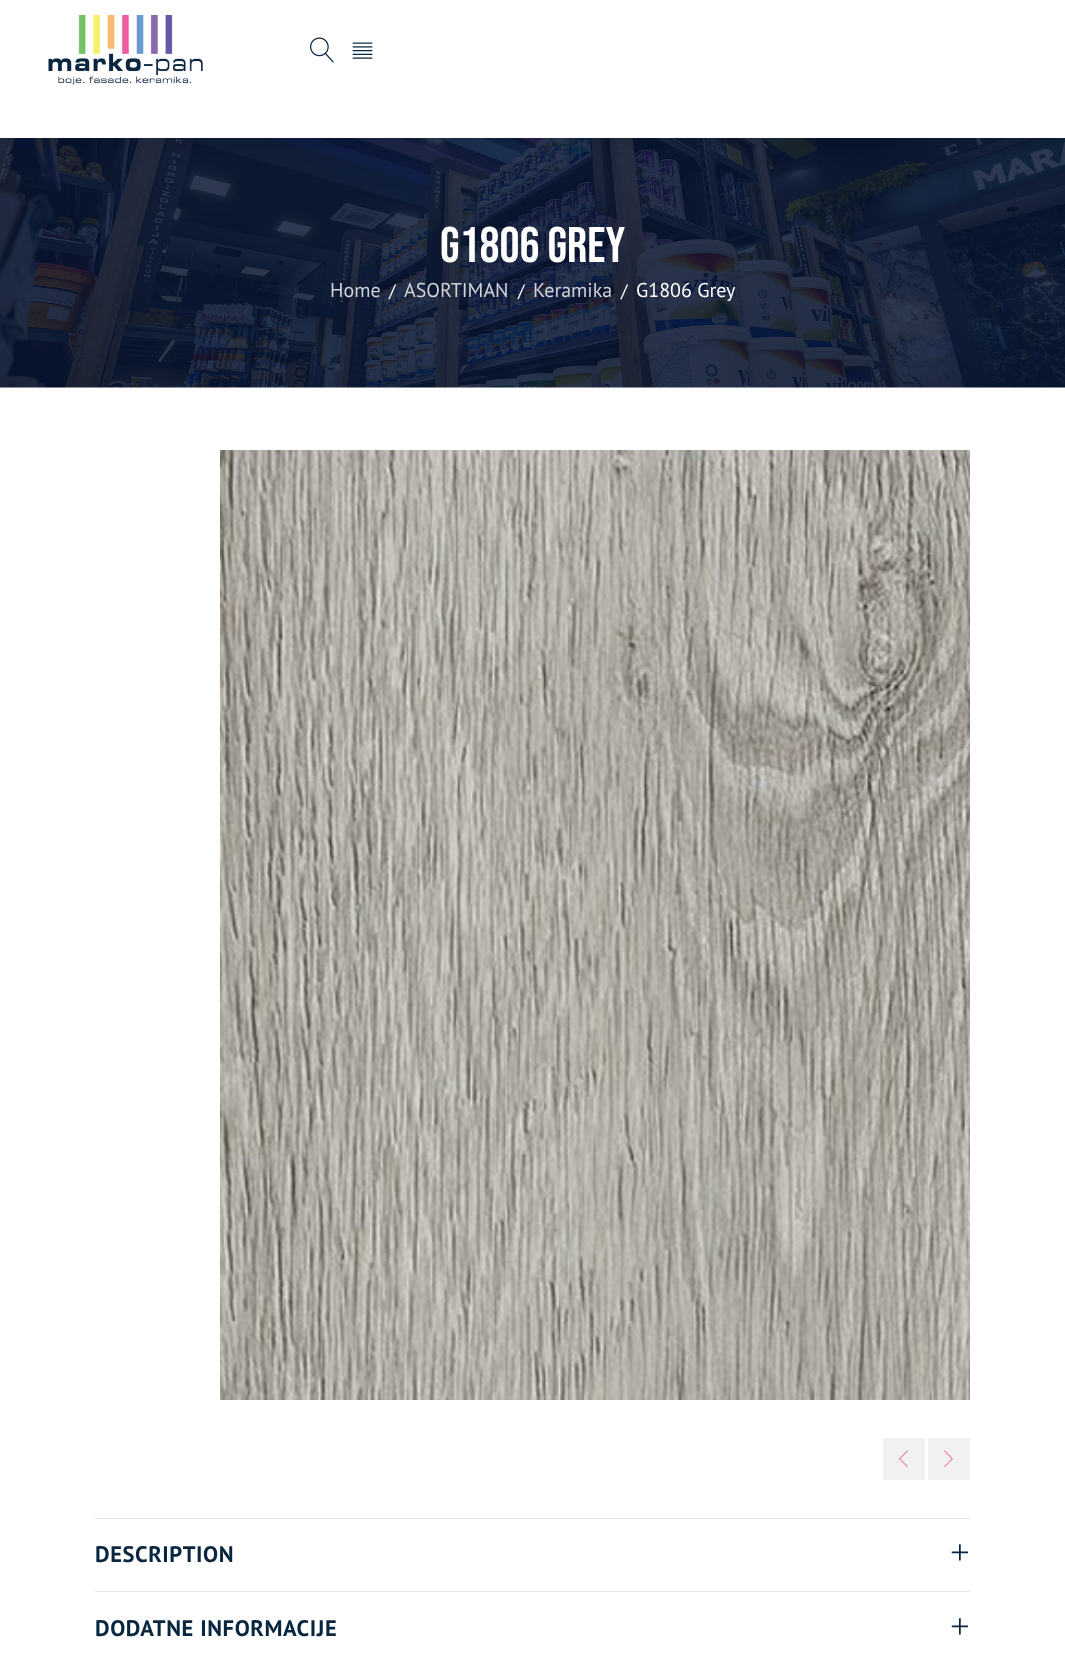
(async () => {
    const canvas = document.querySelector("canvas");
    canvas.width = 1065;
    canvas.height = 1657;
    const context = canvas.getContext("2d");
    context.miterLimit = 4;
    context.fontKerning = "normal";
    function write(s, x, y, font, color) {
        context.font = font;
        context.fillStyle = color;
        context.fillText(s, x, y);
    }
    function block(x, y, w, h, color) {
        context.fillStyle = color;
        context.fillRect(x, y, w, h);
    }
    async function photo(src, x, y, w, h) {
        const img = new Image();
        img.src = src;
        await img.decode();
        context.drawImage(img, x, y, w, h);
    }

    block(0, 0, 1065, 1657, "rgb(255, 255, 255)");
    await photo("media/4.png", 0, 138, 1065, 250);
    context.fillStyle = "rgba(0, 0, 0, 0.1)";
    context.filter = "blur(6px)";
    context.beginPath();
    context.rect(0, 0, 1065, 138);
    context.fill();
    context.filter = "none";
    block(0, 0, 1065, 138, "rgb(255, 255, 255)");
    await photo("media/1.png", 48, 15, 155, 70);
    await photo("media/2.png", 310, 37, 24, 26);
    await photo("media/3.png", 352, 42, 21, 17);
    write("G1806 Grey", 440, 262, "50px Bebas Neue", "rgb(255, 255, 255)");
    write("Home", 330, 297, "20px PT Sans", "rgb(207, 210, 215)");
    write("/", 389, 297, "18px PT Sans", "rgb(255, 255, 255)");
    write("ASORTIMAN", 404, 297, "20px PT Sans", "rgb(207, 210, 215)");
    write("/", 518, 297, "18px PT Sans", "rgb(255, 255, 255)");
    write("Keramika", 533, 297, "20px PT Sans", "rgb(207, 210, 215)");
    write("/", 621, 297, "18px PT Sans", "rgb(255, 255, 255)");
    write("G1806 Grey", 636, 297, "20px PT Sans", "rgb(255, 255, 255)");
    await photo("media/5.png", 220, 450, 750, 950);
    block(883, 1438, 42, 42, "rgb(241, 241, 241)");
    await photo("media/6.png", 899, 1450, 9, 18);
    block(928, 1438, 42, 42, "rgb(241, 241, 241)");
    await photo("media/7.png", 944, 1450, 9, 18);
    block(95, 1518, 875, 1, "rgb(229, 229, 229)");
    context.letterSpacing = "0.6px";
    write("DESCRIPTION", 95, 1562, "bold 22.5px PT Sans", "rgb(9, 38, 64)");
    context.letterSpacing = "0px";
    write("+", 950, 1564, "35px Liberation Serif", "rgb(9, 38, 64)");
    block(95, 1591, 875, 1, "rgb(229, 229, 229)");
    context.letterSpacing = "0.6px";
    write("DODATNE INFORMACIJE", 95, 1636, "bold 22.5px PT Sans", "rgb(9, 38, 64)");
    context.letterSpacing = "0px";
    write("+", 950, 1638, "35px Liberation Serif", "rgb(9, 38, 64)");
})();
